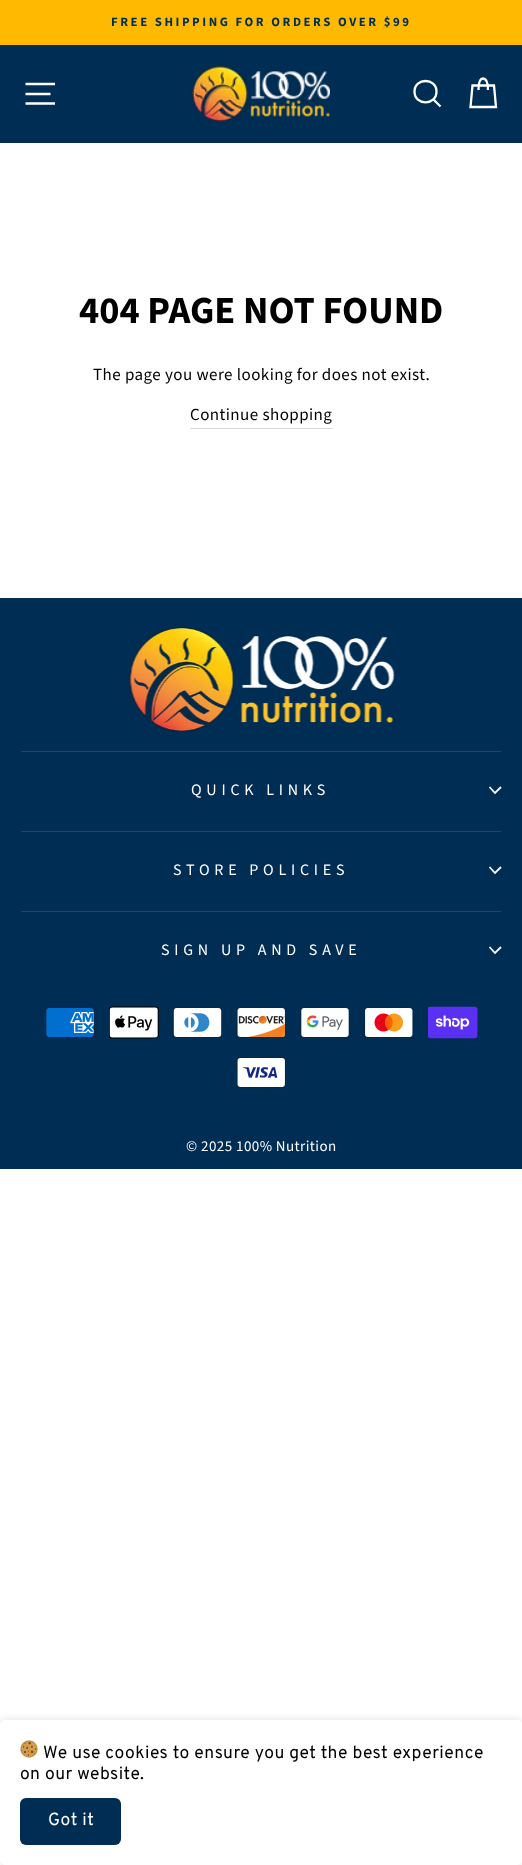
(async () => {
    const canvas = document.querySelector("canvas");
    canvas.width = 522;
    canvas.height = 1865;
    const context = canvas.getContext("2d");
    context.miterLimit = 4;
    context.fontKerning = "normal";
    function write(s, x, y, font, color) {
        context.font = font;
        context.fillStyle = color;
        context.fillText(s, x, y);
    }
    function block(x, y, w, h, color) {
        context.fillStyle = color;
        context.fillRect(x, y, w, h);
    }
    function card(x, y, w, h, r, color) {
        context.fillStyle = color;
        context.beginPath();
        context.roundRect(x, y, w, h, r);
        context.fill();
    }
    async function photo(src, x, y, w, h) {
        const img = new Image();
        img.src = src;
        await img.decode();
        context.drawImage(img, x, y, w, h);
    }

    block(0, 0, 522, 1865, "rgb(255, 255, 255)");
    block(0, 0, 522, 45, "rgb(255, 186, 0)");
    context.letterSpacing = "2.55px";
    write("FREE SHIPPING FOR ORDERS OVER $99", 111, 26, "bold 12.75px Source Sans Pro", "rgb(0, 45, 83)");
    block(0, 45, 522, 98, "rgb(0, 45, 83)");
    context.beginPath();
    context.moveTo(25.5, 84);
    context.lineTo(55, 84);
    context.moveTo(25.5, 94);
    context.lineTo(50.5, 94);
    context.moveTo(25.5, 103.5);
    context.lineTo(55, 103.5);
    context.strokeStyle = "rgb(255, 255, 255)";
    context.lineWidth = 2.3;
    context.stroke();
    await photo("media/1.png", 192, 66, 138, 56);
    context.beginPath();
    context.moveTo(436.5, 91.5);
    context.bezierCurveTo(436.5, 106, 414.5, 106, 414.5, 91.5);
    context.bezierCurveTo(414.5, 77.5, 436.5, 77.5, 436.5, 91.5);
    context.closePath();
    context.moveTo(440.5, 106.5);
    context.lineTo(433.5, 99.5);
    context.stroke();
    context.beginPath();
    context.moveTo(478.5, 90);
    context.bezierCurveTo(478.5, 81, 480.5, 78.5, 483, 78.5);
    context.bezierCurveTo(485.5, 78.5, 488, 81, 488, 90);
    context.moveTo(472.5, 85.5);
    context.lineTo(494, 85.5);
    context.lineTo(496, 107);
    context.lineTo(470.5, 107);
    context.closePath();
    context.stroke();
    context.letterSpacing = "0px";
    write("404 PAGE NOT FOUND", 79, 323, "bold 38.25px Source Sans Pro", "rgb(0, 0, 0)");
    context.letterSpacing = "0.43px";
    write("The page you were looking for does not exist.", 93, 380, "17px Source Sans Pro", "rgb(0, 0, 0)");
    block(190, 428, 143, 1, "rgb(217, 217, 217)");
    write("Continue shopping", 190, 420, "17px Source Sans Pro", "rgb(0, 0, 0)");
    block(0, 598, 522, 571, "rgb(0, 45, 83)");
    await photo("media/2.png", 128, 626, 267, 107);
    block(21, 751, 480, 1, "rgb(31, 70, 104)");
    context.letterSpacing = "4.75px";
    write("QUICK LINKS", 191, 795, "16px Source Sans Pro", "rgb(255, 255, 255)");
    context.beginPath();
    context.moveTo(489.5, 787);
    context.lineTo(495, 793);
    context.lineTo(501, 787);
    context.lineWidth = 1.8;
    context.stroke();
    block(21, 831, 480, 1, "rgb(31, 70, 104)");
    write("STORE POLICIES", 173, 875, "16px Source Sans Pro", "rgb(255, 255, 255)");
    context.beginPath();
    context.moveTo(489.5, 867);
    context.lineTo(495, 873);
    context.lineTo(501, 867);
    context.stroke();
    block(21, 911, 480, 1, "rgb(31, 70, 104)");
    write("SIGN UP AND SAVE", 161, 955, "16px Source Sans Pro", "rgb(255, 255, 255)");
    context.beginPath();
    context.moveTo(489.5, 947);
    context.lineTo(495, 953);
    context.lineTo(501, 947);
    context.stroke();
    await photo("media/3.png", 45, 1007, 50, 31);
    await photo("media/4.png", 109, 1006, 50, 33);
    await photo("media/5.png", 173, 1007, 49, 31);
    await photo("media/6.png", 236, 1007, 50, 31);
    await photo("media/7.png", 300, 1007, 50, 31);
    await photo("media/8.png", 364, 1007, 50, 31);
    await photo("media/9.png", 428, 1006, 50, 33);
    await photo("media/10.png", 236, 1057, 50, 31);
    context.letterSpacing = "0.43px";
    write("© 2025 100% Nutrition", 186, 1151, "15px Source Sans Pro", "rgb(255, 255, 255)");
    context.save();
    context.beginPath();
    context.moveTo(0, 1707);
    context.lineTo(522, 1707);
    context.lineTo(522, 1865);
    context.lineTo(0, 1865);
    context.closePath();
    context.moveTo(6, 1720);
    context.lineTo(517, 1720);
    context.bezierCurveTo(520.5, 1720, 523, 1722.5, 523, 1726);
    context.lineTo(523, 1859);
    context.bezierCurveTo(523, 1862.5, 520.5, 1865, 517, 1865);
    context.lineTo(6, 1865);
    context.bezierCurveTo(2.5, 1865, 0, 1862.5, 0, 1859);
    context.lineTo(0, 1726);
    context.bezierCurveTo(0, 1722.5, 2.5, 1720, 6, 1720);
    context.closePath();
    context.clip("evenodd");
    context.fillStyle = "rgba(0, 0, 0, 0.12)";
    context.filter = "blur(4px)";
    context.beginPath();
    context.roundRect(0, 1720, 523, 145, 6);
    context.fill();
    context.filter = "none";
    context.restore();
    await photo("media/11.png", 20, 1740, 18, 18);
    write("We use cookies to ensure you get the best experience", 43, 1758, "17.5px Overpass", "rgb(0, 0, 0)");
    write("on our website.", 20, 1779, "17.5px Overpass", "rgb(0, 0, 0)");
    card(20, 1798, 101, 47, 6, "rgb(0, 45, 83)");
    context.letterSpacing = "0.5px";
    write("Got it", 48, 1825, "17.5px Overpass", "rgb(255, 255, 255)");
})();
